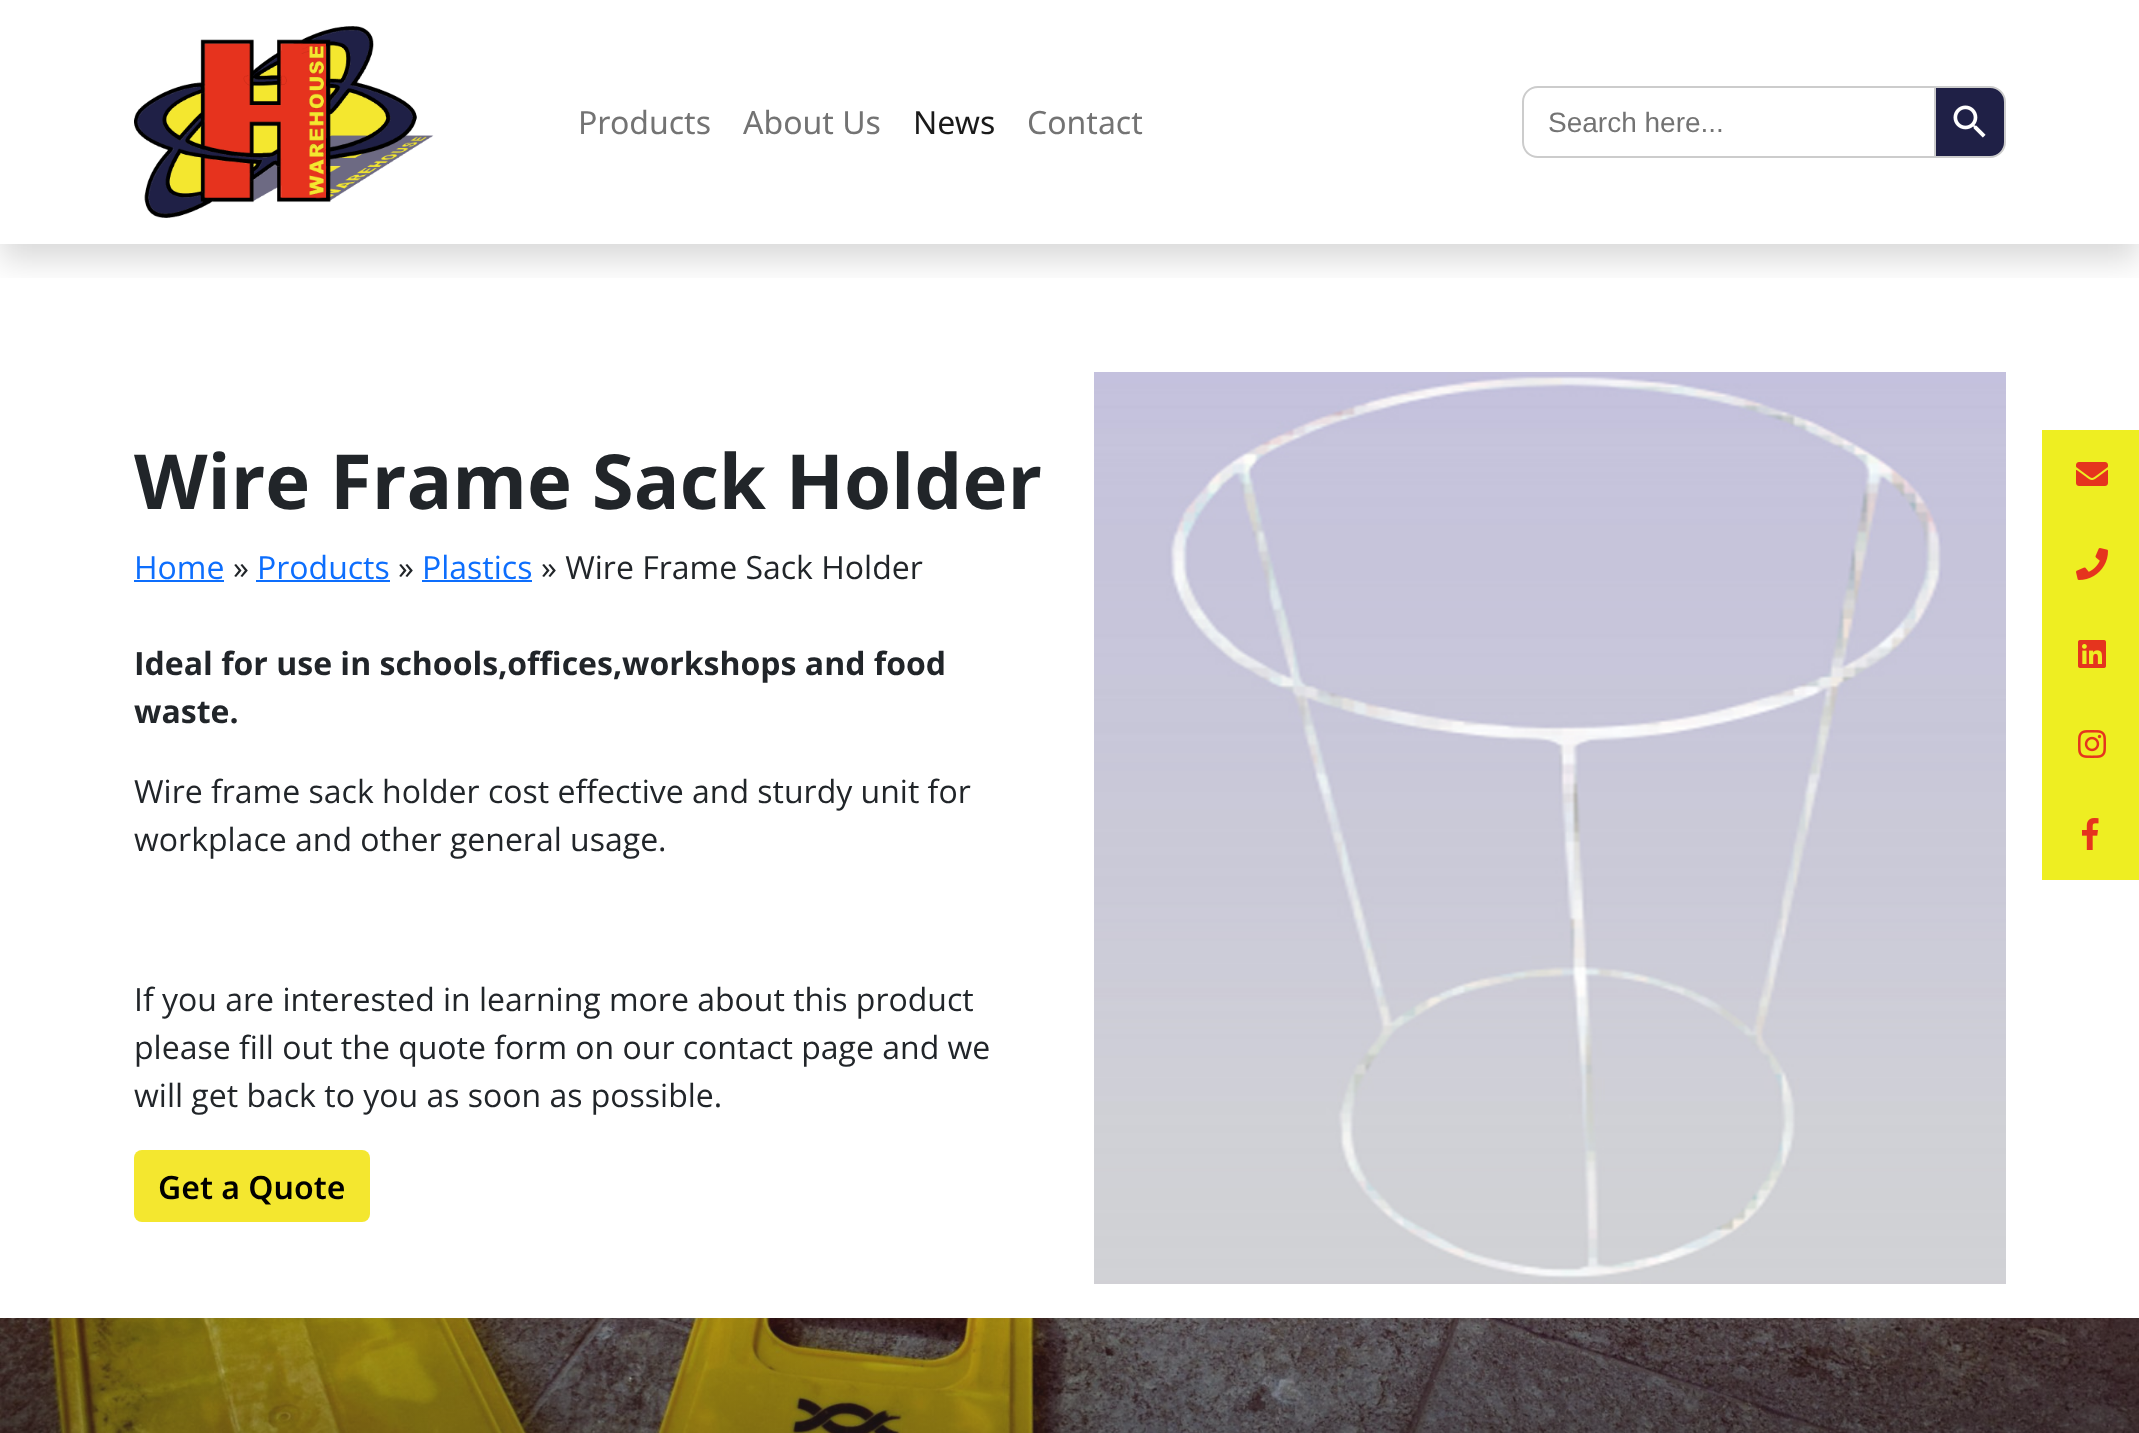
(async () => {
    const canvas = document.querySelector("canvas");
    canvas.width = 2139;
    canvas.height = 1433;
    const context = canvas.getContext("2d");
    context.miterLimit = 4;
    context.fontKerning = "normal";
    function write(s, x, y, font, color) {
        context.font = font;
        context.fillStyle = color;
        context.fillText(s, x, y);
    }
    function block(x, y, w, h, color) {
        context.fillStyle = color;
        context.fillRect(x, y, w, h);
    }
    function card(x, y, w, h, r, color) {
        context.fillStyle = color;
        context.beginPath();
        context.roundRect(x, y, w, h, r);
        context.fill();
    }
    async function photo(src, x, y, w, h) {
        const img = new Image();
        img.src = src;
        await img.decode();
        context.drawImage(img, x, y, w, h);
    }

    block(0, 0, 2139, 1433, "rgb(255, 255, 255)");
    context.save();
    context.beginPath();
    context.rect(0, 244, 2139, 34);
    context.clip();
    context.fillStyle = "rgba(0, 0, 0, 0.15)";
    context.filter = "blur(16px)";
    context.beginPath();
    context.rect(0, 16, 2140, 244);
    context.fill();
    context.filter = "none";
    context.restore();
    await photo("media/1.png", 134, 26, 300, 192);
    write("Products", 578, 134, "32px Noto Sans", "rgb(115, 115, 115)");
    write("About Us", 743, 134, "32px Noto Sans", "rgb(115, 115, 115)");
    write("News", 913, 134, "32px Noto Sans", "rgb(26, 26, 26)");
    write("Contact", 1027, 134, "32px Noto Sans", "rgb(115, 115, 115)");
    context.fillStyle = "rgb(204, 204, 204)";
    context.beginPath();
    context.moveTo(1538, 86);
    context.lineTo(1934, 86);
    context.lineTo(1934, 158);
    context.lineTo(1538, 158);
    context.bezierCurveTo(1529, 158, 1522, 151, 1522, 142);
    context.lineTo(1522, 102);
    context.bezierCurveTo(1522, 93, 1529, 86, 1538, 86);
    context.closePath();
    context.moveTo(1538, 88);
    context.lineTo(1934, 88);
    context.lineTo(1934, 156);
    context.lineTo(1538, 156);
    context.bezierCurveTo(1530, 156, 1524, 150, 1524, 142);
    context.lineTo(1524, 102);
    context.bezierCurveTo(1524, 94, 1530, 88, 1538, 88);
    context.closePath();
    context.fill("evenodd");
    write("Search here...", 1548, 132, "28px Liberation Sans", "rgb(115, 115, 115)");
    context.fillStyle = "rgb(31, 32, 70)";
    context.beginPath();
    context.roundRect(1935, 87, 70, 70, [0, 15, 15, 0]);
    context.fill();
    context.strokeStyle = "rgb(204, 204, 204)";
    context.lineWidth = 2;
    context.stroke();
    await photo("media/2.png", 1953, 105, 33, 33);
    write("Wire Frame Sack Holder", 134, 509, "bold 76.1px Open Sans", "rgb(33, 37, 41)");
    write("Home", 134, 579, "32px Open Sans", "rgb(13, 110, 253)");
    block(134, 580, 90, 2, "rgb(13, 110, 253)");
    write("»", 233, 579, "32px Open Sans", "rgb(33, 37, 41)");
    write("Products", 257, 579, "32px Open Sans", "rgb(13, 110, 253)");
    block(256, 580, 134, 2, "rgb(13, 110, 253)");
    write("»", 398, 579, "32px Open Sans", "rgb(33, 37, 41)");
    write("Plastics", 422, 579, "32px Open Sans", "rgb(13, 110, 253)");
    block(422, 580, 110, 2, "rgb(13, 110, 253)");
    write("» Wire Frame Sack Holder", 541, 579, "32px Open Sans", "rgb(33, 37, 41)");
    write("Ideal for use in schools,offices,workshops and food", 134, 675, "bold 32px Open Sans", "rgb(33, 37, 41)");
    write("waste.", 134, 723, "bold 32px Open Sans", "rgb(33, 37, 41)");
    write("Wire frame sack holder cost effective and sturdy unit for", 134, 803, "32px Open Sans", "rgb(33, 37, 41)");
    write("workplace and other general usage.", 134, 851, "32px Open Sans", "rgb(33, 37, 41)");
    write("If you are interested in learning more about this product", 134, 1011, "32px Open Sans", "rgb(33, 37, 41)");
    write("please fill out the quote form on our contact page and we", 134, 1059, "32px Open Sans", "rgb(33, 37, 41)");
    write("will get back to you as soon as possible.", 134, 1107, "32px Open Sans", "rgb(33, 37, 41)");
    card(134, 1150, 236, 72, 8, "rgb(244, 231, 47)");
    write("Get a Quote", 158, 1199, "600 32px Noto Sans", "rgb(0, 0, 0)");
    await photo("media/3.png", 1094, 372, 912, 912);
    block(2042, 430, 97, 450, "rgb(238, 238, 34)");
    await photo("media/4.png", 2076, 462, 32, 24);
    await photo("media/5.png", 2076, 548, 32, 32);
    await photo("media/6.png", 2078, 640, 28, 28);
    await photo("media/7.png", 2078, 730, 28, 28);
    await photo("media/8.png", 2082, 818, 17, 32);
    await photo("media/9.png", 0, 1318, 2139, 115);
})();
